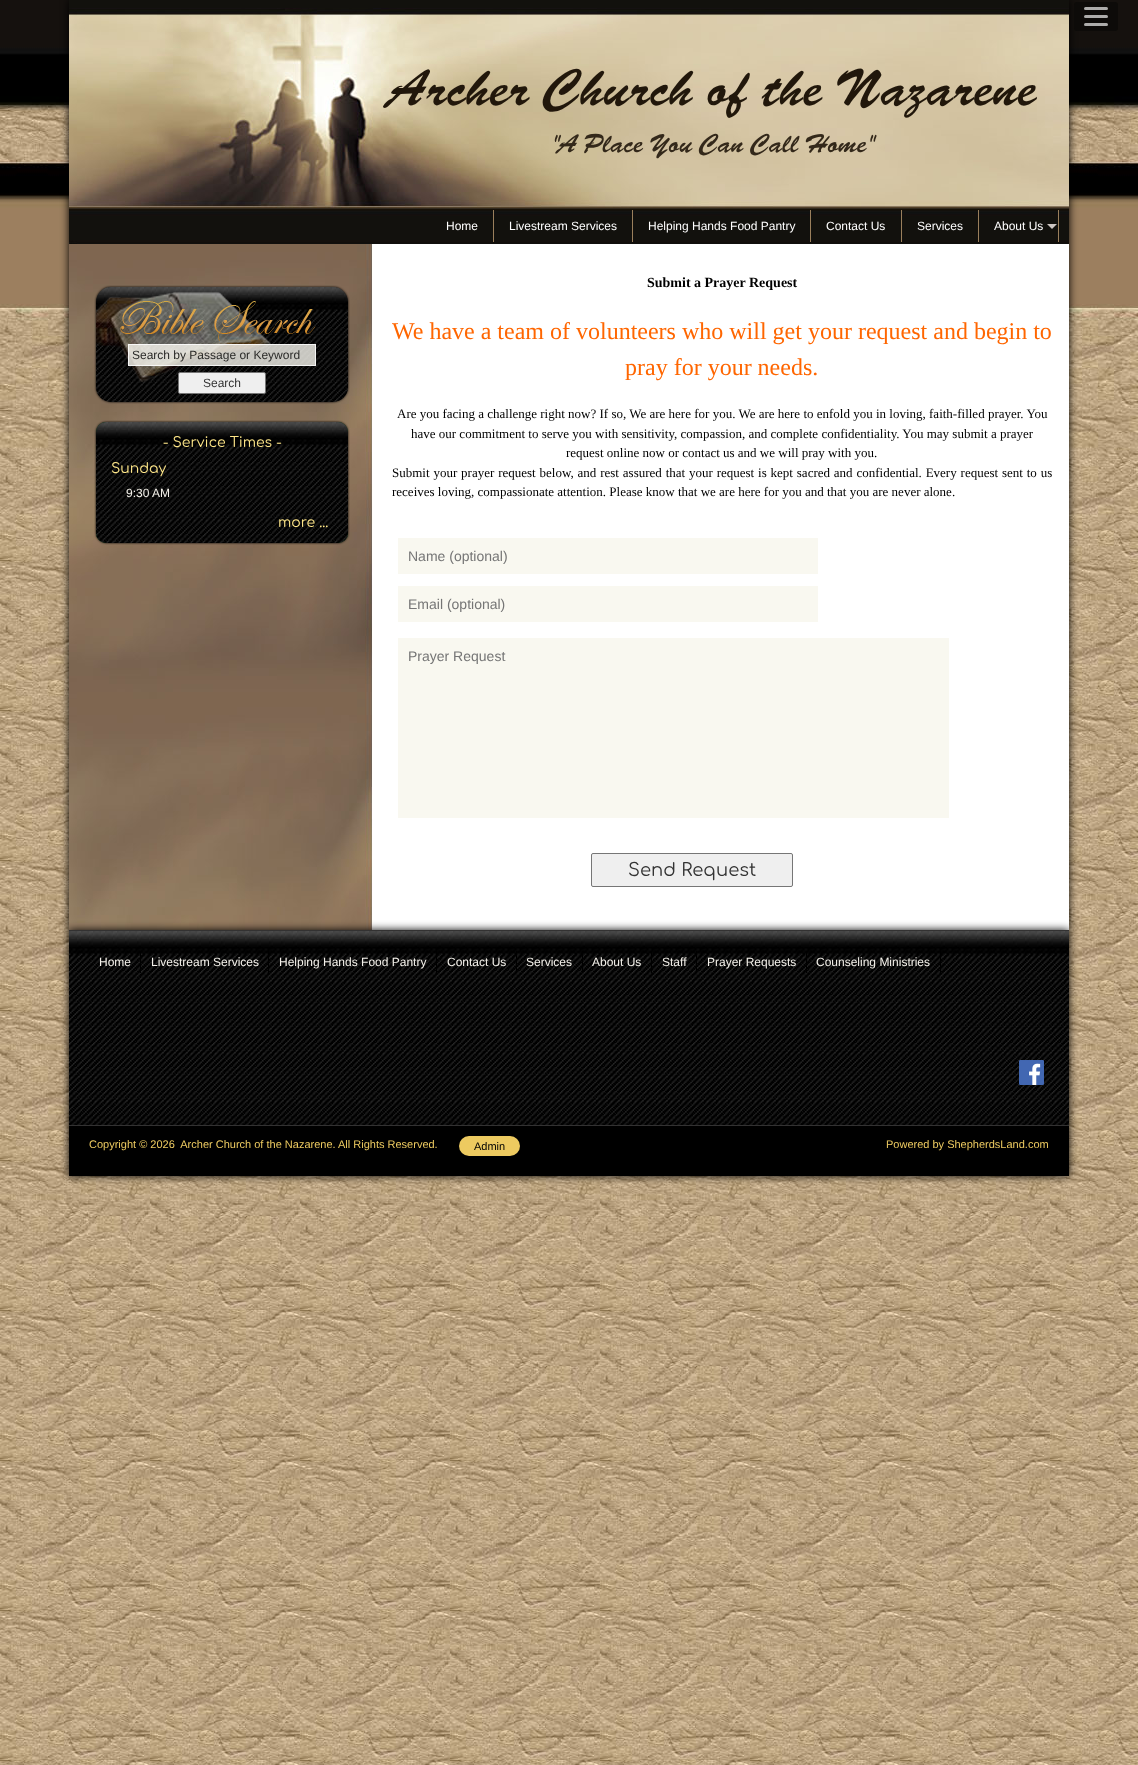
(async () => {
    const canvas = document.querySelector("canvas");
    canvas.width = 1138;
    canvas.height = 1765;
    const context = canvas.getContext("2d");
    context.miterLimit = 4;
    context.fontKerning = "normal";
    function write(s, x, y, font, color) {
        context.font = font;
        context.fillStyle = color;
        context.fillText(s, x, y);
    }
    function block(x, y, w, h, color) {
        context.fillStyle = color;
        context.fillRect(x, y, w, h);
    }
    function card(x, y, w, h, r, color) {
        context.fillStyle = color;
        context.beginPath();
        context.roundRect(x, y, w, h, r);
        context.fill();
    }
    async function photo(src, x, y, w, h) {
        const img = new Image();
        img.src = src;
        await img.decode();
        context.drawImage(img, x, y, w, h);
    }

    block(0, 0, 1138, 1765, "rgb(255, 255, 255)");
    await photo("media/1.png", 0, 450, 1138, 1315);
    await photo("media/2.png", 0, 0, 1138, 450);
    context.fillStyle = "rgb(0, 0, 0)";
    context.filter = "blur(4px)";
    context.beginPath();
    context.rect(69, 0, 1000, 930);
    context.fill();
    context.filter = "none";
    await photo("media/3.png", 69, 0, 1000, 244);
    card(1074, 2, 44, 29, 3, "rgb(13, 11, 9)");
    card(1084, 7, 24, 3, 1.5, "rgb(173, 172, 171)");
    card(1084, 15, 24, 3, 1.5, "rgb(173, 172, 171)");
    card(1084, 23, 24, 3, 1.5, "rgb(173, 172, 171)");
    write("Archer Church of the Nazarene", 389, 105, "53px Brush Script", "rgb(33, 23, 11)");
    write("\"A Place You Can Call Home\"", 551, 152, "26.5px Brush Script", "rgb(51, 40, 26)");
    block(493, 210, 1, 32, "rgb(154, 127, 92)");
    write("Home", 446, 230, "12px Liberation Sans", "rgb(255, 255, 255)");
    block(632, 210, 1, 32, "rgb(154, 127, 92)");
    write("Livestream Services", 509, 230, "12px Liberation Sans", "rgb(255, 255, 255)");
    block(810, 210, 1, 32, "rgb(154, 127, 92)");
    write("Helping Hands Food Pantry", 648, 230, "12px Liberation Sans", "rgb(255, 255, 255)");
    block(901, 210, 1, 32, "rgb(154, 127, 92)");
    write("Contact Us", 826, 230, "12px Liberation Sans", "rgb(255, 255, 255)");
    block(978, 210, 1, 32, "rgb(154, 127, 92)");
    write("Services", 917, 230, "12px Liberation Sans", "rgb(255, 255, 255)");
    block(1058, 210, 1, 32, "rgb(154, 127, 92)");
    write("About Us", 994, 230, "12px Liberation Sans", "rgb(255, 255, 255)");
    context.fillStyle = "rgb(205, 198, 194)";
    context.beginPath();
    context.moveTo(1047, 224);
    context.lineTo(1057, 224);
    context.lineTo(1052, 229);
    context.closePath();
    context.fill();
    await photo("media/4.png", 69, 244, 1000, 686);
    context.fillStyle = "rgb(0, 0, 0)";
    context.filter = "blur(1px)";
    context.beginPath();
    context.roundRect(96, 287, 252, 115, 15);
    context.fill();
    context.filter = "none";
    await photo("media/5.png", 96, 287, 252, 115);
    await photo("media/6.png", 96, 292, 220, 90);
    block(128, 344, 188, 22, "rgba(249, 248, 240, 0.8)");
    context.strokeStyle = "rgba(255, 255, 255, 0.8)";
    context.strokeRect(128.5, 344.5, 187, 21);
    write("Search by Passage or Keyword", 132, 359, "12px Liberation Sans", "rgb(42, 42, 40)");
    context.fillStyle = "rgb(239, 239, 239)";
    context.beginPath();
    context.roundRect(178.5, 372.5, 87, 21, 1.5);
    context.fill();
    context.strokeStyle = "rgb(118, 118, 118)";
    context.stroke();
    write("Search", 203, 387, "12px Liberation Sans", "rgb(51, 51, 51)");
    context.fillStyle = "rgb(0, 0, 0)";
    context.filter = "blur(1px)";
    context.beginPath();
    context.roundRect(96, 422, 252, 121, 10);
    context.fill();
    context.filter = "none";
    card(96, 422, 252, 121, 10, "rgb(13, 68, 29)");
    await photo("media/7.png", 96, 422, 252, 121);
    write("- Service Times -", 163, 447, "14px Comfortaa", "rgb(255, 231, 137)");
    write("Sunday", 111, 473, "14px Comfortaa", "rgb(255, 231, 137)");
    write("9:30", 126, 497, "12px Liberation Sans", "rgb(244, 241, 234)");
    write("AM", 152, 497, "12px Liberation Sans", "rgb(244, 241, 234)");
    write("more ...", 278, 527, "14px Comfortaa", "rgb(255, 231, 137)");
    write("Submit a Prayer Request", 647, 287, "bold 14px Liberation Serif", "rgb(0, 0, 0)");
    write("We have a team of volunteers who will get your request and begin to", 392, 339, "24px Liberation Serif", "rgb(255, 102, 0)");
    write("pray for your needs.", 625, 375, "24px Liberation Serif", "rgb(255, 102, 0)");
    write("Are you facing a challenge right now? If so, We are here for you. We are here to enfold you in loving, faith-filled prayer. You", 397, 418, "13px Liberation Serif", "rgb(0, 0, 0)");
    write("have our commitment to serve you with sensitivity, compassion, and complete confidentiality. You may submit a prayer", 411, 438, "13px Liberation Serif", "rgb(0, 0, 0)");
    write("request online now or contact us and we will pray with you.", 566, 457, "13px Liberation Serif", "rgb(0, 0, 0)");
    context.wordSpacing = "0.6px";
    write("Submit your prayer request below, and rest assured that your request is kept sacred and confidential. Every request sent to us", 392, 477, "13px Liberation Serif", "rgb(0, 0, 0)");
    context.wordSpacing = "0px";
    write("receives loving, compassionate attention. Please know that we are here for you and that you are never alone.", 392, 496, "13px Liberation Serif", "rgb(0, 0, 0)");
    block(398, 538, 420, 36, "rgb(249, 248, 240)");
    write("Name (optional)", 408, 561, "14px Liberation Sans", "rgb(117, 117, 117)");
    block(398, 586, 420, 36, "rgb(249, 248, 240)");
    write("Email (optional)", 408, 609, "14px Liberation Sans", "rgb(117, 117, 117)");
    block(398, 638, 551, 180, "rgb(249, 248, 240)");
    write("Prayer Request", 408, 661, "14px Liberation Sans", "rgb(117, 117, 117)");
    context.fillStyle = "rgb(239, 239, 239)";
    context.beginPath();
    context.roundRect(591.5, 853.5, 201, 33, 1.5);
    context.fill();
    context.stroke();
    write("Send Request", 628, 876, "18px Comfortaa", "rgb(51, 51, 51)");
    context.fillStyle = "rgb(0, 0, 0)";
    context.filter = "blur(4px)";
    context.beginPath();
    context.rect(69, 930, 1000, 246);
    context.fill();
    context.filter = "none";
    await photo("media/8.png", 69, 931, 1000, 194);
    block(69, 930, 1000, 1, "rgb(51, 50, 50)");
    block(69, 1125, 1000, 1, "rgb(51, 50, 50)");
    block(140, 951, 1, 22, "rgb(0, 0, 0)");
    write("Home", 99, 966, "12px Liberation Sans", "rgb(244, 241, 234)");
    block(268, 951, 1, 22, "rgb(0, 0, 0)");
    write("Livestream Services", 151, 966, "12px Liberation Sans", "rgb(244, 241, 234)");
    block(436, 951, 1, 22, "rgb(0, 0, 0)");
    write("Helping Hands Food Pantry", 279, 966, "12px Liberation Sans", "rgb(244, 241, 234)");
    block(516, 951, 1, 22, "rgb(0, 0, 0)");
    write("Contact Us", 447, 966, "12px Liberation Sans", "rgb(244, 241, 234)");
    block(582, 951, 1, 22, "rgb(0, 0, 0)");
    write("Services", 526, 966, "12px Liberation Sans", "rgb(244, 241, 234)");
    block(651, 951, 1, 22, "rgb(0, 0, 0)");
    write("About Us", 592, 966, "12px Liberation Sans", "rgb(244, 241, 234)");
    block(696, 951, 1, 22, "rgb(0, 0, 0)");
    write("Staff", 662, 966, "12px Liberation Sans", "rgb(244, 241, 234)");
    block(806, 951, 1, 22, "rgb(0, 0, 0)");
    write("Prayer Requests", 707, 966, "12px Liberation Sans", "rgb(244, 241, 234)");
    block(940, 951, 1, 22, "rgb(0, 0, 0)");
    write("Counseling Ministries", 816, 966, "12px Liberation Sans", "rgb(244, 241, 234)");
    await photo("media/9.png", 1019, 1060, 25, 25);
    block(69, 1126, 1000, 50, "rgb(0, 0, 0)");
    write("Copyright © 2026  Archer Church of the Nazarene. All Rights Reserved.", 89, 1148, "11px Liberation Sans", "rgb(237, 202, 96)");
    card(459, 1136, 61, 20, 10, "rgb(237, 202, 96)");
    write("Admin", 474, 1150, "11px Liberation Sans", "rgb(0, 0, 0)");
    write("Powered by ShepherdsLand.com", 886, 1148, "11px Liberation Sans", "rgb(237, 202, 96)");
})();
